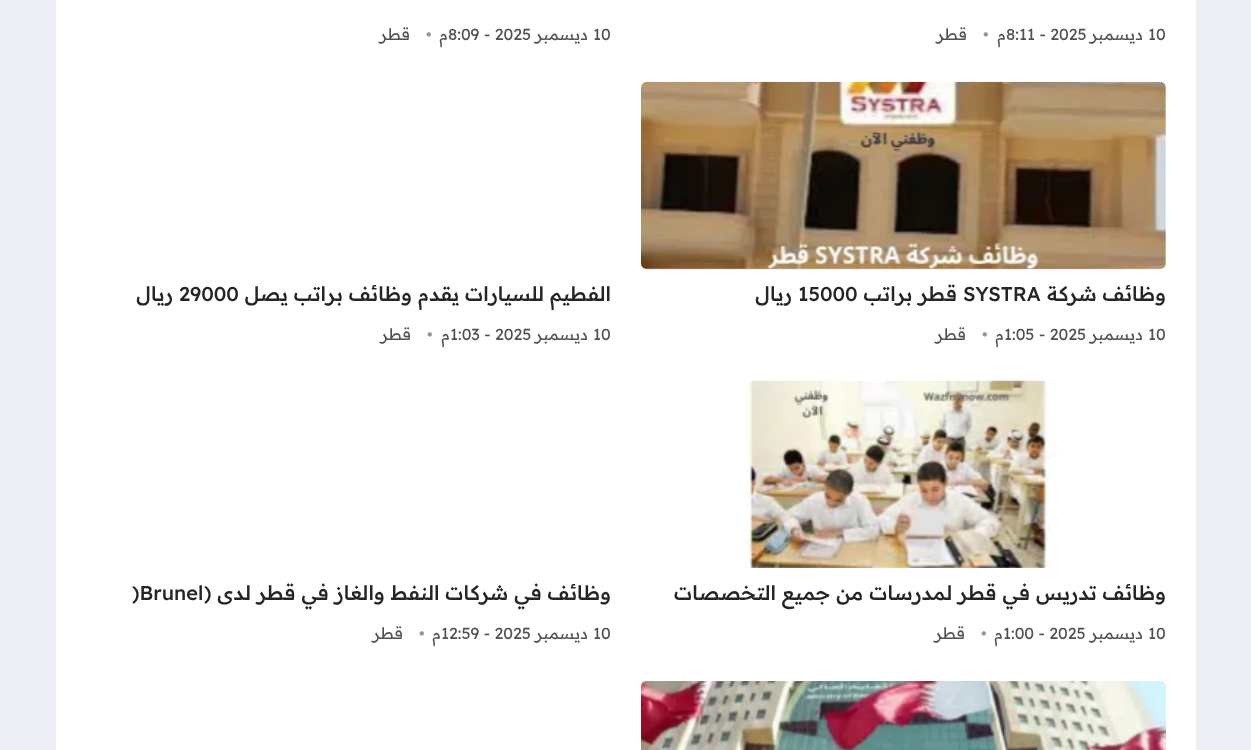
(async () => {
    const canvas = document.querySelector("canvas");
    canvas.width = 1251;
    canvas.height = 750;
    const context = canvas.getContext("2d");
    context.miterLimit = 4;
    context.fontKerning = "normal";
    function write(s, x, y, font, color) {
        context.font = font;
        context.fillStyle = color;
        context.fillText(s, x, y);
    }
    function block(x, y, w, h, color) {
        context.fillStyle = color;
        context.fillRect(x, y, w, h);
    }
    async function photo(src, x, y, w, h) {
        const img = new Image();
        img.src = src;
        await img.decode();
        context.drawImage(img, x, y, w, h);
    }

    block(0, 0, 1251, 750, "rgb(237, 238, 243)");
    block(56, 0, 1140, 750, "rgb(255, 255, 255)");
    write("10", 1148, 40, "16px Readex Pro", "rgb(80, 81, 81)");
    context.direction = "rtl";
    write("ديسمبر", 1143, 40, "16px Readex Pro", "rgb(80, 81, 81)");
    context.direction = "ltr";
    write("8:11 - 2025", 1006, 40, "16px Readex Pro", "rgb(80, 81, 81)");
    context.direction = "rtl";
    write("م", 1006, 40, "16px Readex Pro", "rgb(80, 81, 81)");
    context.direction = "ltr";
    write("•", 983, 40, "16px Readex Pro", "rgb(150, 150, 151)");
    context.direction = "rtl";
    write("قطر", 967, 40, "16px Readex Pro", "rgb(80, 81, 81)");
    context.direction = "ltr";
    write("10", 593, 40, "16px Readex Pro", "rgb(80, 81, 81)");
    context.direction = "rtl";
    write("ديسمبر", 588, 40, "16px Readex Pro", "rgb(80, 81, 81)");
    context.direction = "ltr";
    write("8:09 - 2025", 448, 40, "16px Readex Pro", "rgb(80, 81, 81)");
    context.direction = "rtl";
    write("م", 448, 40, "16px Readex Pro", "rgb(80, 81, 81)");
    context.direction = "ltr";
    write("•", 426, 40, "16px Readex Pro", "rgb(150, 150, 151)");
    context.direction = "rtl";
    write("قطر", 410, 40, "16px Readex Pro", "rgb(80, 81, 81)");
    await photo("media/1.png", 641, 81, 525, 189);
    write("وظائف شركة", 1166, 301, "500 20px Readex Pro", "rgb(36, 37, 38)");
    context.direction = "ltr";
    write("SYSTRA", 963, 301, "500 20px Readex Pro", "rgb(36, 37, 38)");
    context.direction = "rtl";
    write("قطر براتب", 957, 301, "500 20px Readex Pro", "rgb(36, 37, 38)");
    context.direction = "ltr";
    write("15000", 798, 301, "500 20px Readex Pro", "rgb(36, 37, 38)");
    context.direction = "rtl";
    write("ريال", 792, 301, "500 20px Readex Pro", "rgb(36, 37, 38)");
    context.direction = "ltr";
    write("10", 1148, 340, "16px Readex Pro", "rgb(80, 81, 81)");
    context.direction = "rtl";
    write("ديسمبر", 1143, 340, "16px Readex Pro", "rgb(80, 81, 81)");
    context.direction = "ltr";
    write("1:05 - 2025", 1004, 340, "16px Readex Pro", "rgb(80, 81, 81)");
    context.direction = "rtl";
    write("م", 1004, 340, "16px Readex Pro", "rgb(80, 81, 81)");
    context.direction = "ltr";
    write("•", 982, 340, "16px Readex Pro", "rgb(150, 150, 151)");
    context.direction = "rtl";
    write("قطر", 966, 340, "16px Readex Pro", "rgb(80, 81, 81)");
    write("الفطيم للسيارات يقدم وظائف براتب يصل", 611, 301, "500 20px Readex Pro", "rgb(36, 37, 38)");
    context.direction = "ltr";
    write("29000", 179, 301, "500 20px Readex Pro", "rgb(36, 37, 38)");
    context.direction = "rtl";
    write("ريال", 173, 301, "500 20px Readex Pro", "rgb(36, 37, 38)");
    context.direction = "ltr";
    write("10", 593, 340, "16px Readex Pro", "rgb(80, 81, 81)");
    context.direction = "rtl";
    write("ديسمبر", 588, 340, "16px Readex Pro", "rgb(80, 81, 81)");
    context.direction = "ltr";
    write("1:03 - 2025", 450, 340, "16px Readex Pro", "rgb(80, 81, 81)");
    context.direction = "rtl";
    write("م", 450, 340, "16px Readex Pro", "rgb(80, 81, 81)");
    context.direction = "ltr";
    write("•", 427, 340, "16px Readex Pro", "rgb(150, 150, 151)");
    context.direction = "rtl";
    write("قطر", 411, 340, "16px Readex Pro", "rgb(80, 81, 81)");
    await photo("media/2.png", 746, 380, 312, 188);
    write("وظائف تدريس في قطر لمدرسات من جميع التخصصات", 1166, 600, "500 20px Readex Pro", "rgb(36, 37, 38)");
    context.direction = "ltr";
    write("10", 1148, 639, "16px Readex Pro", "rgb(80, 81, 81)");
    context.direction = "rtl";
    write("ديسمبر", 1143, 639, "16px Readex Pro", "rgb(80, 81, 81)");
    context.direction = "ltr";
    write("1:00 - 2025", 1003, 639, "16px Readex Pro", "rgb(80, 81, 81)");
    context.direction = "rtl";
    write("م", 1003, 639, "16px Readex Pro", "rgb(80, 81, 81)");
    context.direction = "ltr";
    write("•", 981, 639, "16px Readex Pro", "rgb(150, 150, 151)");
    context.direction = "rtl";
    write("قطر", 965, 639, "16px Readex Pro", "rgb(80, 81, 81)");
    write("وظائف في شركات النفط والغاز في قطر لدى (", 611, 600, "500 20px Readex Pro", "rgb(36, 37, 38)");
    context.direction = "ltr";
    write(")Brunel", 132, 600, "500 20px Readex Pro", "rgb(36, 37, 38)");
    write("10", 593, 639, "16px Readex Pro", "rgb(80, 81, 81)");
    context.direction = "rtl";
    write("ديسمبر", 588, 639, "16px Readex Pro", "rgb(80, 81, 81)");
    context.direction = "ltr";
    write("12:59 - 2025", 441, 639, "16px Readex Pro", "rgb(80, 81, 81)");
    context.direction = "rtl";
    write("م", 441, 639, "16px Readex Pro", "rgb(80, 81, 81)");
    context.direction = "ltr";
    write("•", 419, 639, "16px Readex Pro", "rgb(150, 150, 151)");
    context.direction = "rtl";
    write("قطر", 403, 639, "16px Readex Pro", "rgb(80, 81, 81)");
    await photo("media/3.png", 641, 681, 525, 69);
})();
